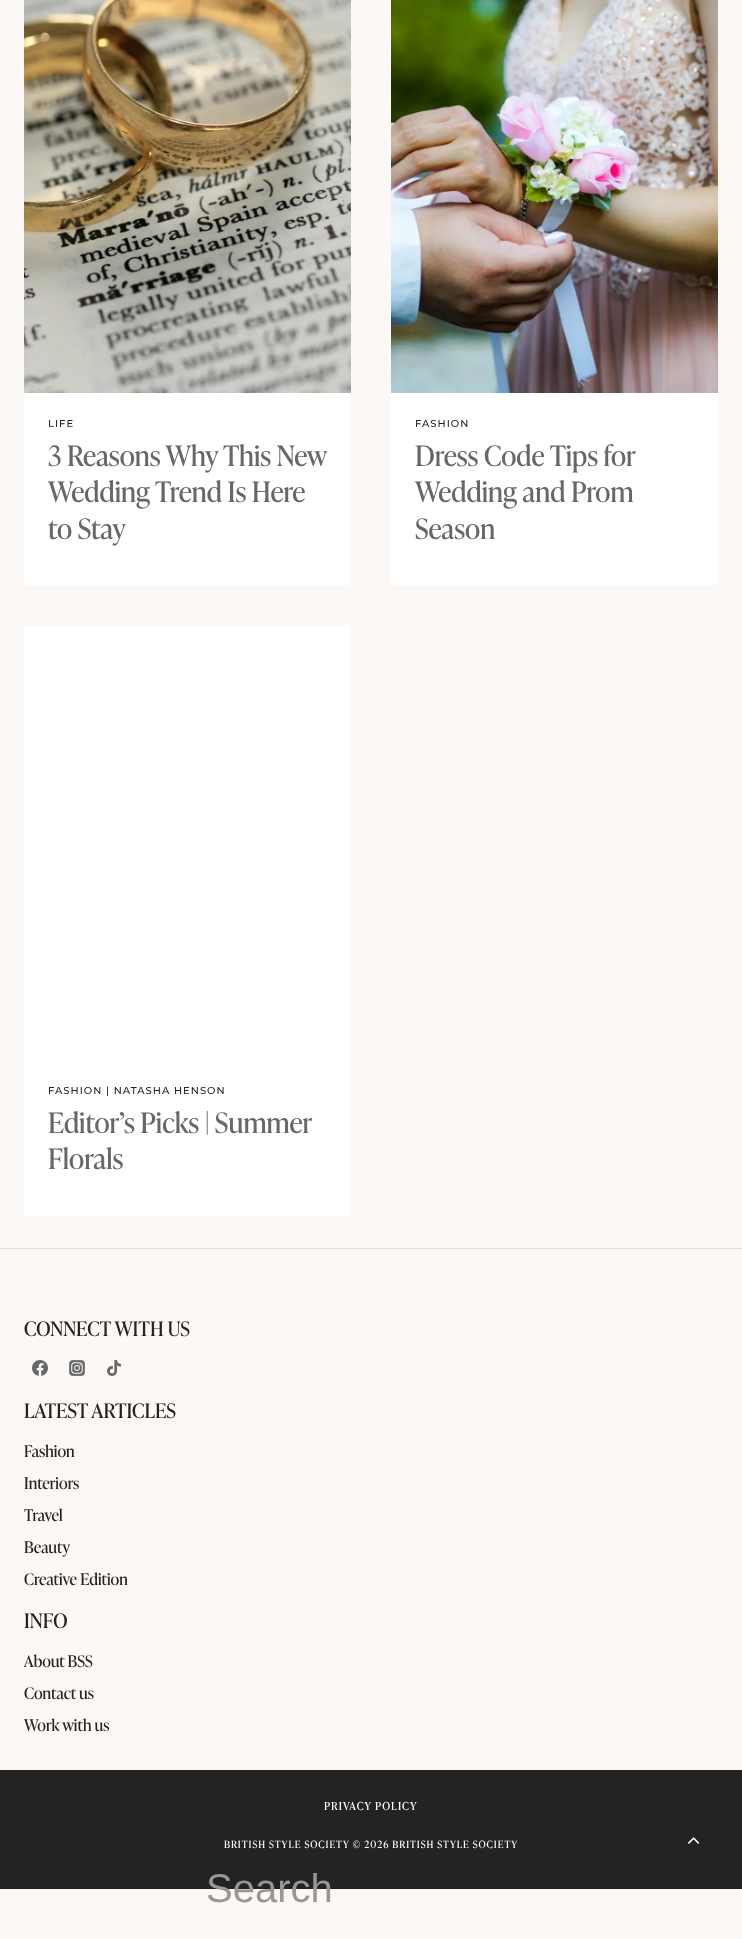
(async () => {
    const canvas = document.querySelector("canvas");
    canvas.width = 742;
    canvas.height = 1939;
    const context = canvas.getContext("2d");
    context.miterLimit = 4;
    context.fontKerning = "normal";
    function write(s, x, y, font, color) {
        context.font = font;
        context.fillStyle = color;
        context.fillText(s, x, y);
    }
    function block(x, y, w, h, color) {
        context.fillStyle = color;
        context.fillRect(x, y, w, h);
    }
    async function photo(src, x, y, w, h) {
        const img = new Image();
        img.src = src;
        await img.decode();
        context.drawImage(img, x, y, w, h);
    }

    block(0, 0, 742, 1939, "rgb(251, 248, 245)");
    block(24, 393, 327, 192, "rgb(255, 255, 255)");
    await photo("media/1.png", 24, 0, 327, 393);
    context.letterSpacing = "1px";
    write("LIFE", 48, 427, "500 10px Montserrat", "rgb(35, 35, 35)");
    context.letterSpacing = "0px";
    write("3 Reasons Why This New", 48, 466, "28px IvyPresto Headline", "rgb(103, 103, 103)");
    write("Wedding Trend Is Here", 48, 502, "28px IvyPresto Headline", "rgb(103, 103, 103)");
    write("to Stay", 48, 539, "28px IvyPresto Headline", "rgb(103, 103, 103)");
    block(391, 393, 327, 192, "rgb(255, 255, 255)");
    await photo("media/2.png", 391, 0, 327, 393);
    context.letterSpacing = "1px";
    write("FASHION", 415, 427, "500 10px Montserrat", "rgb(35, 35, 35)");
    context.letterSpacing = "0px";
    write("Dress Code Tips for", 415, 466, "28px IvyPresto Headline", "rgb(103, 103, 103)");
    write("Wedding and Prom", 415, 502, "28px IvyPresto Headline", "rgb(103, 103, 103)");
    write("Season", 415, 539, "28px IvyPresto Headline", "rgb(103, 103, 103)");
    block(24, 625, 327, 591, "rgb(255, 255, 255)");
    context.letterSpacing = "1px";
    write("FASHION | NATASHA HENSON", 48, 1094, "500 10px Montserrat", "rgb(35, 35, 35)");
    context.letterSpacing = "0px";
    write("Editor’s Picks | Summer", 48, 1133, "28px IvyPresto Headline", "rgb(103, 103, 103)");
    write("Florals", 48, 1169, "28px IvyPresto Headline", "rgb(103, 103, 103)");
    block(0, 1248, 742, 1, "rgb(234, 218, 209)");
    write("CONNECT WITH US", 24, 1336, "20px IvyPresto Headline", "rgb(35, 35, 35)");
    await photo("media/3.png", 32, 1360, 16, 16);
    await photo("media/4.png", 69, 1360, 16, 16);
    await photo("media/5.png", 107, 1360, 14, 16);
    write("LATEST ARTICLES", 24, 1418, "20px IvyPresto Headline", "rgb(35, 35, 35)");
    write("Fashion", 24, 1457, "16px IvyPresto Headline", "rgb(35, 35, 35)");
    write("Interiors", 24, 1489, "16px IvyPresto Headline", "rgb(35, 35, 35)");
    write("Travel", 24, 1521, "16px IvyPresto Headline", "rgb(35, 35, 35)");
    write("Beauty", 24, 1553, "16px IvyPresto Headline", "rgb(35, 35, 35)");
    write("Creative Edition", 24, 1585, "16px IvyPresto Headline", "rgb(35, 35, 35)");
    write("INFO", 24, 1628, "20px IvyPresto Headline", "rgb(35, 35, 35)");
    write("About BSS", 24, 1667, "16px IvyPresto Headline", "rgb(35, 35, 35)");
    write("Contact us", 24, 1699, "16px IvyPresto Headline", "rgb(35, 35, 35)");
    write("Work with us", 24, 1731, "16px IvyPresto Headline", "rgb(35, 35, 35)");
    block(0, 1770, 742, 119, "rgb(35, 35, 35)");
    context.letterSpacing = "1.1px";
    write("PRIVACY POLICY", 324, 1810, "11px IvyPresto Headline", "rgb(255, 255, 255)");
    context.letterSpacing = "1px";
    write("BRITISH STYLE SOCIETY © 2026 BRITISH STYLE SOCIETY", 224, 1848, "10px IvyPresto Headline", "rgb(255, 255, 255)");
    await photo("media/6.png", 688, 1837, 12, 7);
    context.letterSpacing = "0px";
    write("Search", 206, 1902, "40px Liberation Sans", "rgb(153, 151, 149)");
})();
